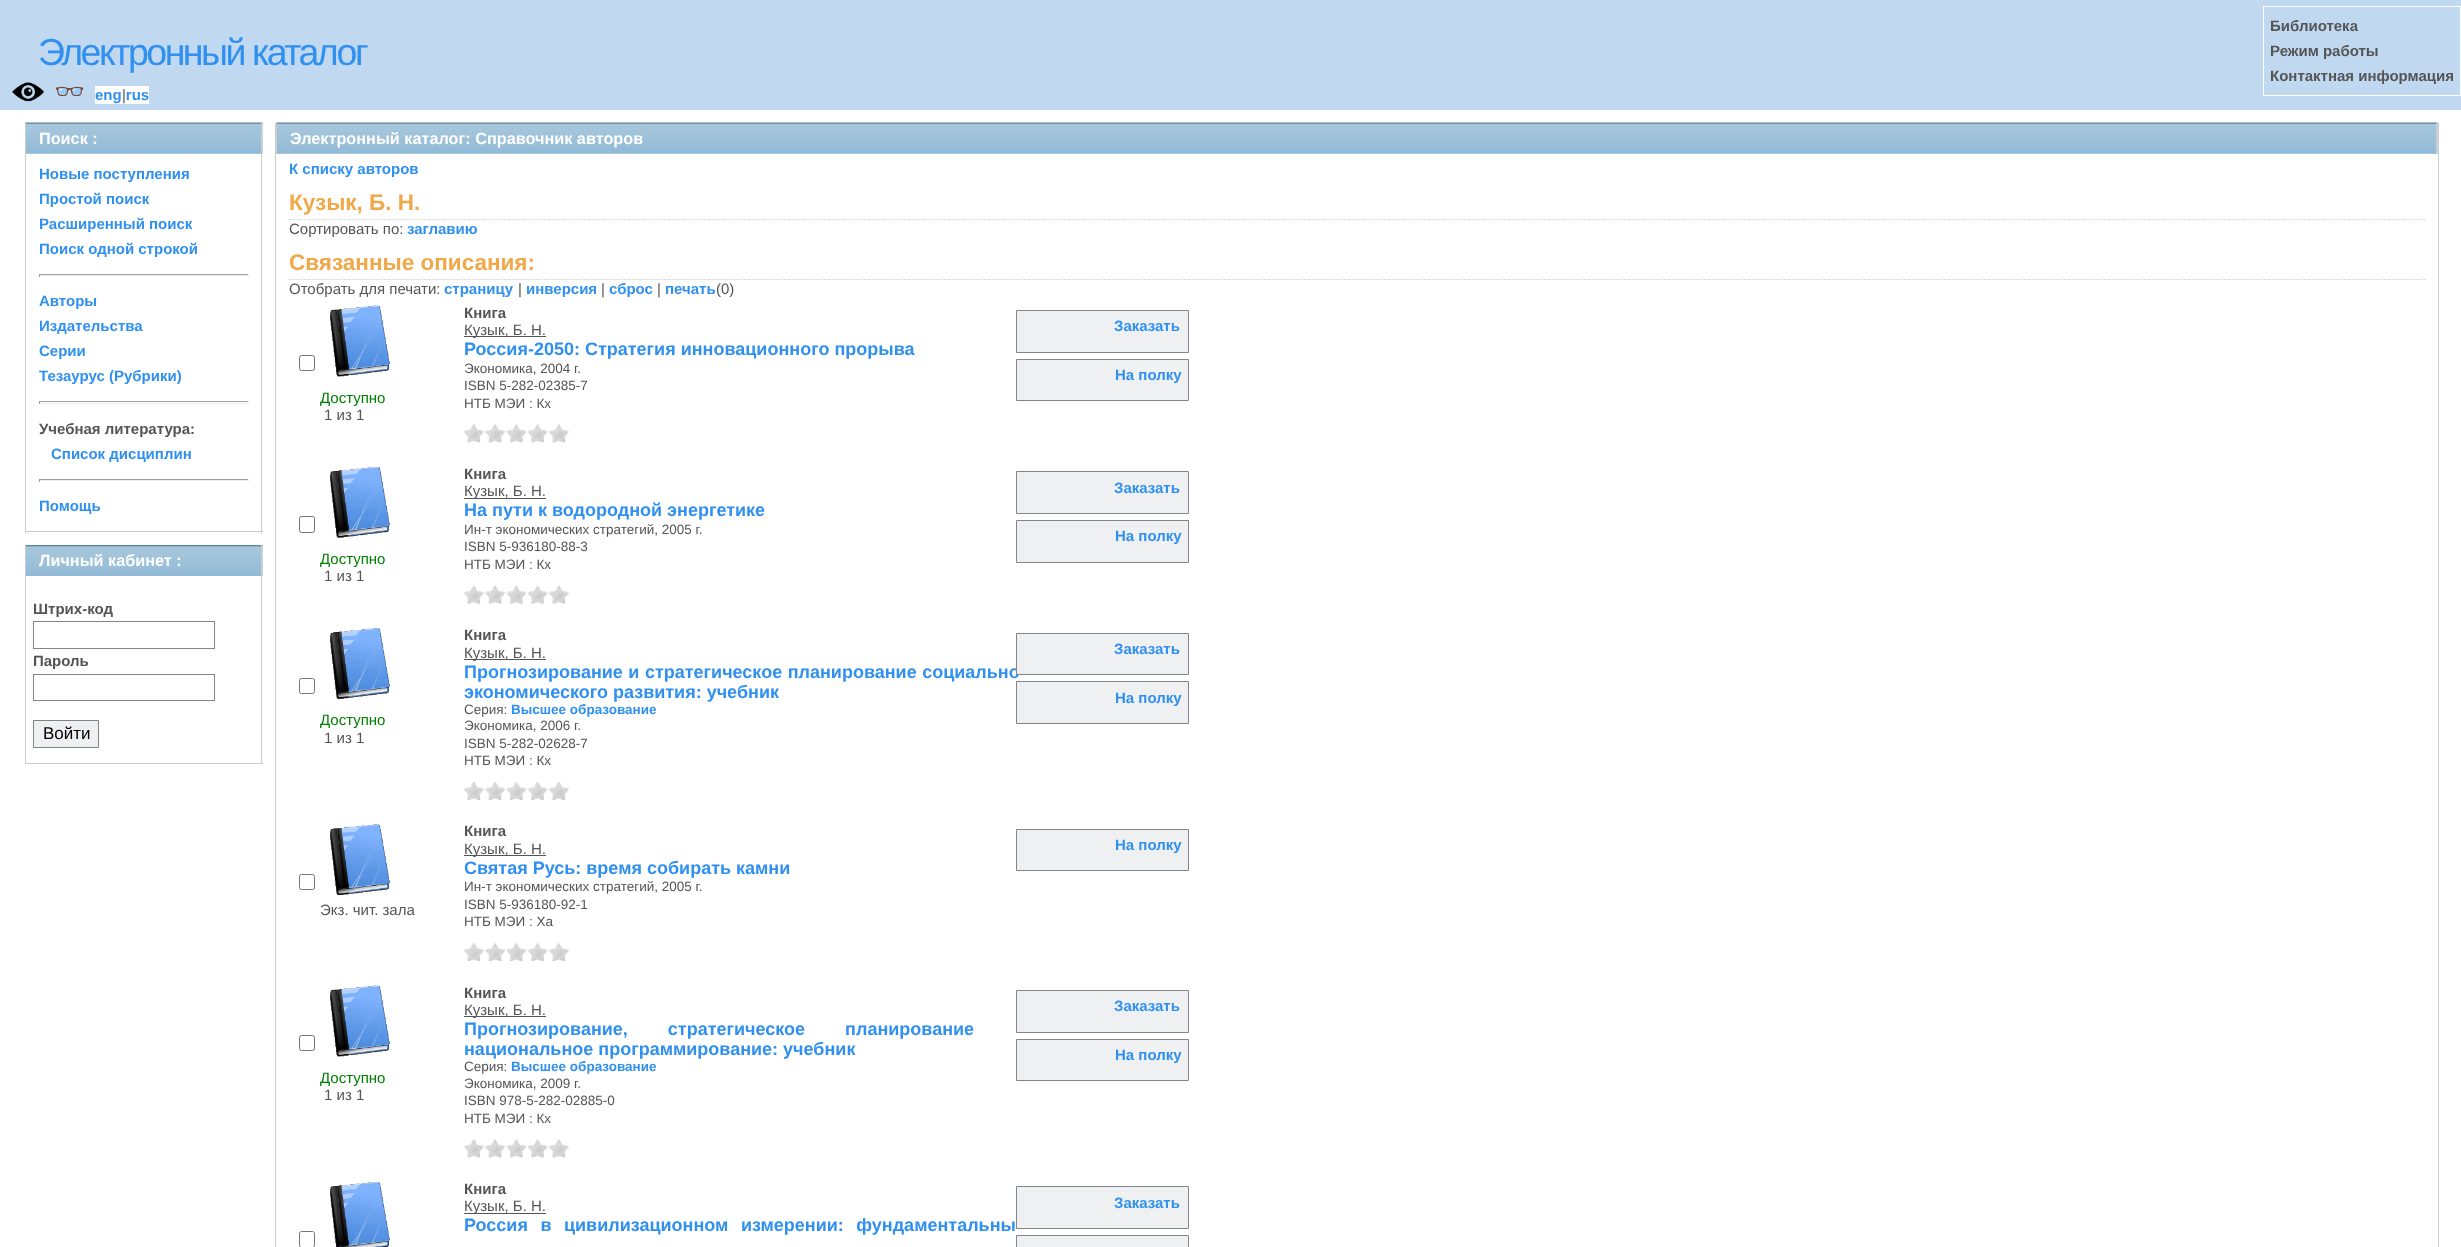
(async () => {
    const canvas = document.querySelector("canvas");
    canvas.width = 2461;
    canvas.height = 1247;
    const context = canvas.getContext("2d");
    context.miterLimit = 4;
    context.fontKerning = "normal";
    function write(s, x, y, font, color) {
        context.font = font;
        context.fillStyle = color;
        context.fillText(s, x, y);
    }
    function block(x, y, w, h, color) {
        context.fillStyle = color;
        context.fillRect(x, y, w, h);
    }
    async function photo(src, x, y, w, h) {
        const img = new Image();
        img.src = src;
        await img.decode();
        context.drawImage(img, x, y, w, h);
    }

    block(0, 0, 2461, 1247, "rgb(255, 255, 255)");
    block(0, 0, 2461, 110, "rgb(192, 216, 240)");
    context.letterSpacing = "-2.5px";
    write("Электронный каталог", 38, 65, "37.5px Liberation Sans", "rgb(48, 144, 240)");
    await photo("media/1.png", 12, 82, 32, 20);
    context.letterSpacing = "0px";
    write("👓", 54, 100, "bold 25px Noto Color Emoji", "rgb(48, 144, 240)");
    block(95, 86, 54, 18, "rgb(255, 255, 255)");
    write("eng rus", 95, 100, "bold 15px Liberation Sans", "rgb(48, 144, 240)");
    write("|", 122, 100, "15px Liberation Sans", "rgb(85, 85, 85)");
    context.strokeStyle = "rgb(255, 255, 255)";
    context.strokeRect(2263.5, 6.5, 197, 89);
    write("Библиотека", 2270, 31, "bold 15px Liberation Sans", "rgb(85, 85, 85)");
    write("Режим работы", 2270, 56, "bold 15px Liberation Sans", "rgb(85, 85, 85)");
    write("Контактная информация", 2270, 81, "bold 15px Liberation Sans", "rgb(85, 85, 85)");
    block(26, 123, 237, 31, "rgb(238, 240, 241)");
    await photo("media/2.png", 25, 122, 238, 32);
    block(261, 123, 1, 410, "rgb(204, 204, 204)");
    block(25, 123, 1, 31, "rgb(204, 204, 204)");
    write("Поиск :", 39, 144, "bold 16.25px Liberation Sans", "rgb(255, 255, 255)");
    block(25, 531, 238, 1, "rgb(204, 204, 204)");
    block(25, 154, 1, 379, "rgb(204, 204, 204)");
    write("Новые поступления", 39, 179, "bold 15px Liberation Sans", "rgb(48, 144, 240)");
    write("Простой поиск", 39, 204, "bold 15px Liberation Sans", "rgb(48, 144, 240)");
    write("Расширенный поиск", 39, 229, "bold 15px Liberation Sans", "rgb(48, 144, 240)");
    write("Поиск одной строкой", 39, 254, "bold 15px Liberation Sans", "rgb(48, 144, 240)");
    block(39, 274, 210, 1, "rgb(159, 159, 159)");
    block(248, 274, 1, 3, "rgb(238, 238, 238)");
    block(39, 275, 210, 1, "rgb(238, 238, 238)");
    block(39, 274, 1, 3, "rgb(159, 159, 159)");
    write("Авторы", 39, 306, "bold 15px Liberation Sans", "rgb(48, 144, 240)");
    write("Издательства", 39, 331, "bold 15px Liberation Sans", "rgb(48, 144, 240)");
    write("Серии", 39, 356, "bold 15px Liberation Sans", "rgb(48, 144, 240)");
    write("Тезаурус (Рубрики)", 39, 381, "bold 15px Liberation Sans", "rgb(48, 144, 240)");
    block(39, 401, 210, 1, "rgb(159, 159, 159)");
    block(248, 401, 1, 3, "rgb(238, 238, 238)");
    block(39, 403, 210, 1, "rgb(238, 238, 238)");
    block(39, 401, 1, 3, "rgb(159, 159, 159)");
    write("Учебная литература:", 39, 434, "bold 15px Liberation Sans", "rgb(85, 85, 85)");
    write("Список дисциплин", 51, 459, "bold 15px Liberation Sans", "rgb(48, 144, 240)");
    block(39, 479, 210, 1, "rgb(159, 159, 159)");
    block(248, 479, 1, 3, "rgb(238, 238, 238)");
    block(39, 480, 210, 1, "rgb(238, 238, 238)");
    block(39, 479, 1, 3, "rgb(159, 159, 159)");
    write("Помощь", 39, 511, "bold 15px Liberation Sans", "rgb(48, 144, 240)");
    block(262, 545, 1, 31, "rgb(238, 240, 241)");
    await photo("media/3.png", 26, 545, 237, 31);
    block(261, 545, 1, 219, "rgb(204, 204, 204)");
    block(25, 545, 1, 31, "rgb(204, 204, 204)");
    write("Личный кабинет :", 39, 566, "bold 16.25px Liberation Sans", "rgb(255, 255, 255)");
    block(25, 763, 238, 1, "rgb(204, 204, 204)");
    block(25, 576, 1, 188, "rgb(204, 204, 204)");
    write("Штрих-код", 33, 614, "bold 15px Liberation Sans", "rgb(85, 85, 85)");
    context.strokeStyle = "rgb(132, 131, 136)";
    context.strokeRect(33.5, 621.5, 181, 27);
    write("Пароль", 33, 666, "bold 15px Liberation Sans", "rgb(85, 85, 85)");
    context.strokeRect(33.5, 674.5, 181, 26);
    context.fillStyle = "rgb(238, 240, 241)";
    context.beginPath();
    context.rect(33.5, 720.5, 65, 27);
    context.fill();
    context.stroke();
    write("Войти", 43, 739, "17px Liberation Sans", "rgb(0, 0, 0)");
    block(2438, 123, 1, 1124, "rgb(204, 204, 204)");
    block(275, 123, 1, 1124, "rgb(204, 204, 204)");
    block(277, 123, 2161, 31, "rgb(238, 240, 241)");
    await photo("media/4.png", 276, 122, 2162, 32);
    block(2436, 123, 1, 31, "rgb(204, 204, 204)");
    block(276, 123, 1, 31, "rgb(204, 204, 204)");
    write("Электронный каталог: Справочник авторов", 290, 144, "bold 16.25px Liberation Sans", "rgb(255, 255, 255)");
    write("К списку авторов", 289, 174, "bold 15px Liberation Sans", "rgb(48, 144, 240)");
    context.beginPath();
    context.moveTo(289, 219.5);
    context.lineTo(2425, 219.5);
    context.strokeStyle = "rgb(204, 204, 204)";
    context.lineWidth = 1.2;
    context.setLineDash([1.25, 1.25]);
    context.stroke();
    write("Кузык, Б. Н.", 289, 210, "bold 22.5px Liberation Sans", "rgb(240, 168, 72)");
    write("Сортировать по:", 289, 234, "15px Liberation Sans", "rgb(85, 85, 85)");
    write("заглавию", 407, 234, "bold 15px Liberation Sans", "rgb(48, 144, 240)");
    context.beginPath();
    context.moveTo(289, 279.5);
    context.lineTo(2425, 279.5);
    context.stroke();
    write("Связанные описания:", 289, 270, "bold 22.5px Liberation Sans", "rgb(240, 168, 72)");
    write("Отобрать для печати:", 289, 294, "15px Liberation Sans", "rgb(85, 85, 85)");
    write("страницу", 444, 294, "bold 15px Liberation Sans", "rgb(48, 144, 240)");
    write("|", 518, 294, "15px Liberation Sans", "rgb(85, 85, 85)");
    write("инверсия", 526, 294, "bold 15px Liberation Sans", "rgb(48, 144, 240)");
    write("|", 601, 294, "15px Liberation Sans", "rgb(85, 85, 85)");
    write("сброс", 609, 294, "bold 15px Liberation Sans", "rgb(48, 144, 240)");
    write("|", 657, 294, "15px Liberation Sans", "rgb(85, 85, 85)");
    write("печать", 665, 294, "bold 15px Liberation Sans", "rgb(48, 144, 240)");
    write("(0)", 716, 294, "15px Liberation Sans", "rgb(85, 85, 85)");
    write("Книга", 464, 318, "bold 15px Liberation Sans", "rgb(85, 85, 85)");
    block(464, 336, 82, 1, "rgb(85, 85, 85)");
    write("Кузык, Б. Н.", 464, 335, "15px Liberation Sans", "rgb(85, 85, 85)");
    write("Россия-2050: Стратегия инновационного прорыва", 464, 355, "bold 18px Liberation Sans", "rgb(48, 144, 240)");
    write("Экономика, 2004 г.", 464, 373, "13.5px Liberation Sans", "rgb(85, 85, 85)");
    write("ISBN 5-282-02385-7", 464, 390, "13.5px Liberation Sans", "rgb(85, 85, 85)");
    write("НТБ МЭИ : Кх", 464, 408, "13.5px Liberation Sans", "rgb(85, 85, 85)");
    await photo("media/5.png", 464, 424, 20, 19);
    await photo("media/6.png", 485, 424, 20, 19);
    await photo("media/7.png", 506, 424, 21, 19);
    await photo("media/8.png", 527, 424, 21, 19);
    await photo("media/9.png", 549, 424, 20, 19);
    context.fillStyle = "rgb(238, 240, 241)";
    context.beginPath();
    context.rect(1016.5, 310.5, 172, 42);
    context.fill();
    context.strokeStyle = "rgb(132, 131, 136)";
    context.lineWidth = 1;
    context.setLineDash([]);
    context.stroke();
    write("Заказать", 1114, 331, "bold 15px Liberation Sans", "rgb(48, 144, 240)");
    context.fillStyle = "rgb(238, 240, 241)";
    context.beginPath();
    context.rect(1016.5, 359.5, 172, 41);
    context.fill();
    context.stroke();
    write("На полку", 1115, 380, "bold 15px Liberation Sans", "rgb(48, 144, 240)");
    context.beginPath();
    context.roundRect(299.5, 355.5, 15, 15, 2);
    context.strokeStyle = "rgb(118, 118, 118)";
    context.stroke();
    await photo("media/10.png", 330, 305, 60, 72);
    write("Доступно", 320, 403, "15px Liberation Sans", "rgb(0, 128, 0)");
    write("1 из 1", 324, 420, "15px Liberation Sans", "rgb(85, 85, 85)");
    write("Книга", 464, 479, "bold 15px Liberation Sans", "rgb(85, 85, 85)");
    block(464, 498, 82, 1, "rgb(85, 85, 85)");
    write("Кузык, Б. Н.", 464, 496, "15px Liberation Sans", "rgb(85, 85, 85)");
    write("На пути к водородной энергетике", 464, 516, "bold 18px Liberation Sans", "rgb(48, 144, 240)");
    write("Ин-т экономических стратегий, 2005 г.", 464, 534, "13.5px Liberation Sans", "rgb(85, 85, 85)");
    write("ISBN 5-936180-88-3", 464, 551, "13.5px Liberation Sans", "rgb(85, 85, 85)");
    write("НТБ МЭИ : Кх", 464, 569, "13.5px Liberation Sans", "rgb(85, 85, 85)");
    await photo("media/11.png", 464, 585, 20, 19);
    await photo("media/12.png", 485, 585, 20, 19);
    await photo("media/13.png", 506, 585, 21, 19);
    await photo("media/14.png", 527, 585, 21, 19);
    await photo("media/15.png", 549, 585, 20, 19);
    context.fillStyle = "rgb(238, 240, 241)";
    context.beginPath();
    context.rect(1016.5, 471.5, 172, 42);
    context.fill();
    context.strokeStyle = "rgb(132, 131, 136)";
    context.stroke();
    write("Заказать", 1114, 493, "bold 15px Liberation Sans", "rgb(48, 144, 240)");
    context.fillStyle = "rgb(238, 240, 241)";
    context.beginPath();
    context.rect(1016.5, 520.5, 172, 42);
    context.fill();
    context.stroke();
    write("На полку", 1115, 541, "bold 15px Liberation Sans", "rgb(48, 144, 240)");
    context.beginPath();
    context.roundRect(299.5, 516.5, 15, 16, 2);
    context.strokeStyle = "rgb(118, 118, 118)";
    context.stroke();
    await photo("media/16.png", 330, 467, 60, 71);
    write("Доступно", 320, 564, "15px Liberation Sans", "rgb(0, 128, 0)");
    write("1 из 1", 324, 581, "15px Liberation Sans", "rgb(85, 85, 85)");
    write("Книга", 464, 640, "bold 15px Liberation Sans", "rgb(85, 85, 85)");
    block(464, 659, 82, 1, "rgb(85, 85, 85)");
    write("Кузык, Б. Н.", 464, 658, "15px Liberation Sans", "rgb(85, 85, 85)");
    context.wordSpacing = "0.5px";
    write("Прогнозирование и стратегическое планирование социально", 464, 678, "bold 18px Liberation Sans", "rgb(48, 144, 240)");
    context.wordSpacing = "0px";
    write("экономического развития: учебник", 464, 698, "bold 18px Liberation Sans", "rgb(48, 144, 240)");
    write("Серия:", 464, 714, "13.5px Liberation Sans", "rgb(85, 85, 85)");
    write("Высшее образование", 511, 714, "bold 13.5px Liberation Sans", "rgb(48, 144, 240)");
    write("Экономика, 2006 г.", 464, 730, "13.5px Liberation Sans", "rgb(85, 85, 85)");
    write("ISBN 5-282-02628-7", 464, 748, "13.5px Liberation Sans", "rgb(85, 85, 85)");
    write("НТБ МЭИ : Кх", 464, 765, "13.5px Liberation Sans", "rgb(85, 85, 85)");
    await photo("media/17.png", 464, 781, 20, 19);
    await photo("media/18.png", 485, 781, 20, 19);
    await photo("media/19.png", 506, 781, 21, 19);
    await photo("media/20.png", 527, 781, 21, 19);
    await photo("media/21.png", 549, 781, 20, 19);
    context.fillStyle = "rgb(238, 240, 241)";
    context.beginPath();
    context.rect(1016.5, 633.5, 172, 41);
    context.fill();
    context.strokeStyle = "rgb(132, 131, 136)";
    context.stroke();
    write("Заказать", 1114, 654, "bold 15px Liberation Sans", "rgb(48, 144, 240)");
    context.fillStyle = "rgb(238, 240, 241)";
    context.beginPath();
    context.rect(1016.5, 681.5, 172, 42);
    context.fill();
    context.stroke();
    write("На полку", 1115, 703, "bold 15px Liberation Sans", "rgb(48, 144, 240)");
    context.beginPath();
    context.roundRect(299.5, 678.5, 15, 15, 2);
    context.strokeStyle = "rgb(118, 118, 118)";
    context.stroke();
    await photo("media/22.png", 330, 628, 60, 72);
    write("Доступно", 320, 725, "15px Liberation Sans", "rgb(0, 128, 0)");
    write("1 из 1", 324, 743, "15px Liberation Sans", "rgb(85, 85, 85)");
    write("Книга", 464, 836, "bold 15px Liberation Sans", "rgb(85, 85, 85)");
    block(464, 855, 82, 1, "rgb(85, 85, 85)");
    write("Кузык, Б. Н.", 464, 854, "15px Liberation Sans", "rgb(85, 85, 85)");
    write("Святая Русь: время собирать камни", 464, 874, "bold 18px Liberation Sans", "rgb(48, 144, 240)");
    write("Ин-т экономических стратегий, 2005 г.", 464, 891, "13.5px Liberation Sans", "rgb(85, 85, 85)");
    write("ISBN 5-936180-92-1", 464, 909, "13.5px Liberation Sans", "rgb(85, 85, 85)");
    write("НТБ МЭИ : Ха", 464, 926, "13.5px Liberation Sans", "rgb(85, 85, 85)");
    await photo("media/23.png", 464, 943, 20, 18);
    await photo("media/24.png", 485, 942, 20, 19);
    await photo("media/25.png", 506, 942, 21, 19);
    await photo("media/26.png", 527, 943, 21, 18);
    await photo("media/27.png", 549, 943, 20, 18);
    context.fillStyle = "rgb(238, 240, 241)";
    context.beginPath();
    context.rect(1016.5, 829.5, 172, 41);
    context.fill();
    context.strokeStyle = "rgb(132, 131, 136)";
    context.stroke();
    write("На полку", 1115, 850, "bold 15px Liberation Sans", "rgb(48, 144, 240)");
    context.beginPath();
    context.roundRect(299.5, 874.5, 15, 15, 2);
    context.strokeStyle = "rgb(118, 118, 118)";
    context.stroke();
    await photo("media/28.png", 330, 824, 60, 72);
    write("Экз. чит. зала", 320, 915, "15px Liberation Sans", "rgb(85, 85, 85)");
    write("Книга", 464, 998, "bold 15px Liberation Sans", "rgb(85, 85, 85)");
    block(464, 1016, 82, 1, "rgb(85, 85, 85)");
    write("Кузык, Б. Н.", 464, 1015, "15px Liberation Sans", "rgb(85, 85, 85)");
    context.wordSpacing = "35px";
    write("Прогнозирование, стратегическое планирование", 464, 1035, "bold 18px Liberation Sans", "rgb(48, 144, 240)");
    context.wordSpacing = "0px";
    write("национальное программирование: учебник", 464, 1055, "bold 18px Liberation Sans", "rgb(48, 144, 240)");
    write("Серия:", 464, 1071, "13.5px Liberation Sans", "rgb(85, 85, 85)");
    write("Высшее образование", 511, 1071, "bold 13.5px Liberation Sans", "rgb(48, 144, 240)");
    write("Экономика, 2009 г.", 464, 1088, "13.5px Liberation Sans", "rgb(85, 85, 85)");
    write("ISBN 978-5-282-02885-0", 464, 1105, "13.5px Liberation Sans", "rgb(85, 85, 85)");
    write("НТБ МЭИ : Кх", 464, 1123, "13.5px Liberation Sans", "rgb(85, 85, 85)");
    await photo("media/5.png", 464, 1139, 20, 19);
    await photo("media/6.png", 485, 1139, 20, 19);
    await photo("media/7.png", 506, 1139, 21, 19);
    await photo("media/8.png", 527, 1139, 21, 19);
    await photo("media/9.png", 549, 1139, 20, 19);
    context.fillStyle = "rgb(238, 240, 241)";
    context.beginPath();
    context.rect(1016.5, 990.5, 172, 42);
    context.fill();
    context.strokeStyle = "rgb(132, 131, 136)";
    context.stroke();
    write("Заказать", 1114, 1011, "bold 15px Liberation Sans", "rgb(48, 144, 240)");
    context.fillStyle = "rgb(238, 240, 241)";
    context.beginPath();
    context.rect(1016.5, 1039.5, 172, 41);
    context.fill();
    context.stroke();
    write("На полку", 1115, 1060, "bold 15px Liberation Sans", "rgb(48, 144, 240)");
    context.beginPath();
    context.roundRect(299.5, 1035.5, 15, 15, 2);
    context.strokeStyle = "rgb(118, 118, 118)";
    context.stroke();
    await photo("media/10.png", 330, 985, 60, 72);
    write("Доступно", 320, 1083, "15px Liberation Sans", "rgb(0, 128, 0)");
    write("1 из 1", 324, 1100, "15px Liberation Sans", "rgb(85, 85, 85)");
    context.beginPath();
    context.roundRect(299.5, 1231.5, 15, 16, 2);
    context.stroke();
    await photo("media/29.png", 330, 1182, 60, 65);
    write("Книга", 464, 1194, "bold 15px Liberation Sans", "rgb(85, 85, 85)");
    block(464, 1213, 82, 1, "rgb(85, 85, 85)");
    write("Кузык, Б. Н.", 464, 1211, "15px Liberation Sans", "rgb(85, 85, 85)");
    context.wordSpacing = "7.5px";
    write("Россия в цивилизационном измерении: фундаментальны", 464, 1231, "bold 18px Liberation Sans", "rgb(48, 144, 240)");
    context.fillStyle = "rgb(238, 240, 241)";
    context.beginPath();
    context.rect(1016.5, 1186.5, 172, 42);
    context.fill();
    context.strokeStyle = "rgb(132, 131, 136)";
    context.stroke();
    context.wordSpacing = "0px";
    write("Заказать", 1114, 1208, "bold 15px Liberation Sans", "rgb(48, 144, 240)");
    context.fillStyle = "rgb(238, 240, 241)";
    context.beginPath();
    context.rect(1016.5, 1235.5, 172, 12);
    context.fill();
    context.stroke();
})();
